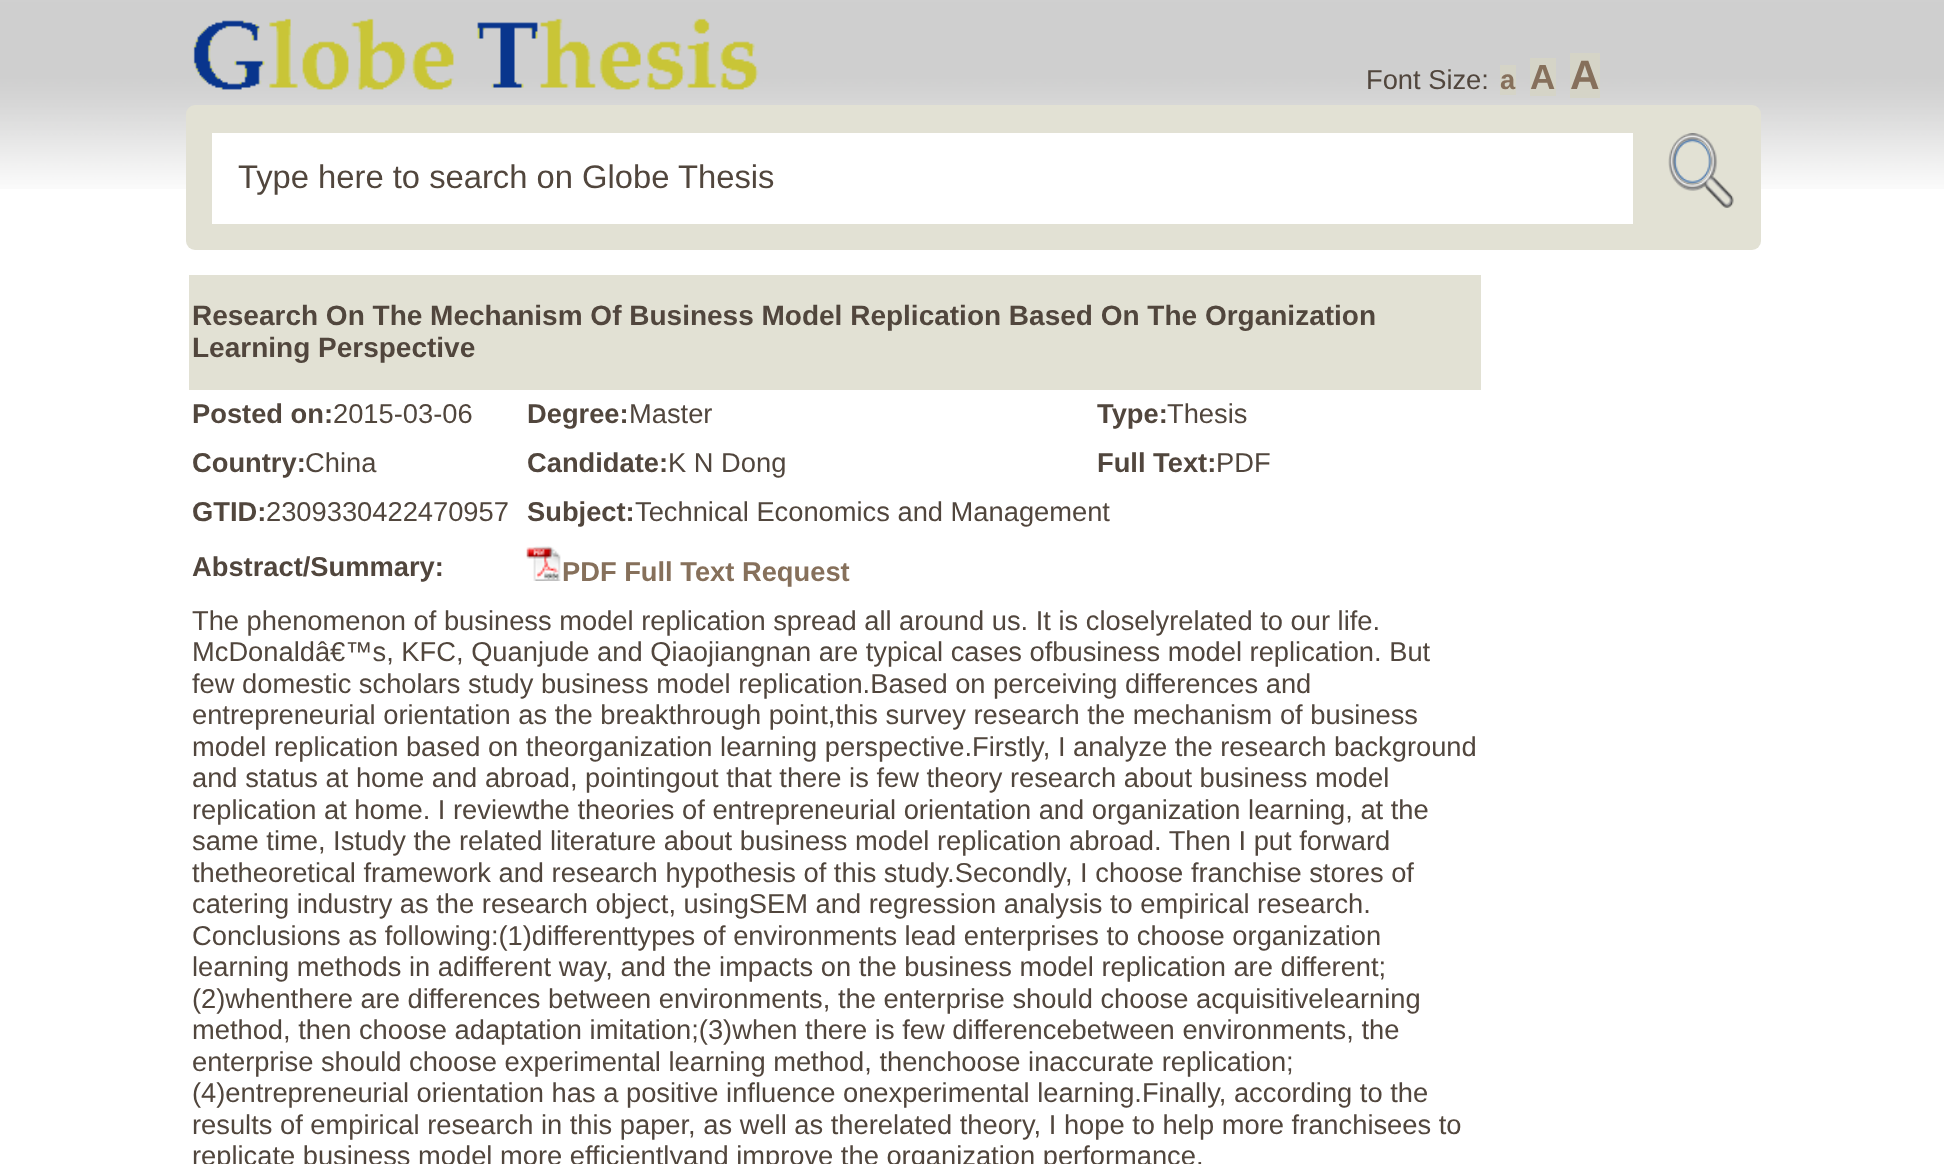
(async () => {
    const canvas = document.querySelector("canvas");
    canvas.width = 1944;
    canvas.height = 1164;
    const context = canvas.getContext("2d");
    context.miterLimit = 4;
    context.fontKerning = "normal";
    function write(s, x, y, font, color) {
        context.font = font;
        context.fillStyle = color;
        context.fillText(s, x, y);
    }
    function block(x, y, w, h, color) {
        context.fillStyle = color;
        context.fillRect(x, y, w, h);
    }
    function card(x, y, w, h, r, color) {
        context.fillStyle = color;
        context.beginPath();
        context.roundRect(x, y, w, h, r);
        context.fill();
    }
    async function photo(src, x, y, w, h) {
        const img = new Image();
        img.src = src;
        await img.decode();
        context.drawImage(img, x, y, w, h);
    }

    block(0, 0, 1944, 1164, "rgb(255, 255, 255)");
    await photo("media/1.png", 0, 0, 1944, 189);
    await photo("media/2.png", 193, 18, 566, 72);
    write("Font Size:", 1366, 89, "27.3px Liberation Sans", "rgb(81, 70, 61)");
    block(1500, 65, 16, 30, "rgb(213, 212, 199)");
    write("a", 1500, 89, "bold 27.3px Liberation Sans", "rgb(134, 112, 91)");
    block(1530, 58, 26, 38, "rgb(213, 212, 199)");
    write("A", 1530, 89, "bold 35px Liberation Sans", "rgb(134, 112, 91)");
    block(1570, 53, 30, 45, "rgb(213, 212, 199)");
    write("A", 1570, 89, "bold 41px Liberation Sans", "rgb(134, 112, 91)");
    card(186, 105, 1575, 145, 9, "rgb(226, 225, 212)");
    block(212, 133, 1421, 91, "rgb(255, 255, 255)");
    write("Type here to search on Globe Thesis", 238, 188, "32.75px Liberation Sans", "rgb(81, 70, 61)");
    await photo("media/3.png", 1668, 133, 66, 75);
    block(189, 275, 1292, 115, "rgb(226, 225, 212)");
    write("Research On The Mechanism Of Business Model Replication Based On The Organization", 192, 325, "bold 28px Liberation Sans", "rgb(81, 70, 61)");
    write("Learning Perspective", 192, 357, "bold 28px Liberation Sans", "rgb(81, 70, 61)");
    write("Posted on:", 192, 423, "bold 27.3px Liberation Sans", "rgb(81, 70, 61)");
    write("2015-03-06", 333, 423, "27.3px Liberation Sans", "rgb(81, 70, 61)");
    write("Degree:", 527, 423, "bold 27.3px Liberation Sans", "rgb(81, 70, 61)");
    write("Master", 629, 423, "27.3px Liberation Sans", "rgb(81, 70, 61)");
    write("Type:", 1097, 423, "bold 27.3px Liberation Sans", "rgb(81, 70, 61)");
    write("Thesis", 1167, 423, "27.3px Liberation Sans", "rgb(81, 70, 61)");
    write("Country:", 192, 472, "bold 27.3px Liberation Sans", "rgb(81, 70, 61)");
    write("China", 305, 472, "27.3px Liberation Sans", "rgb(81, 70, 61)");
    write("Candidate:", 527, 472, "bold 27.3px Liberation Sans", "rgb(81, 70, 61)");
    write("K N Dong", 668, 472, "27.3px Liberation Sans", "rgb(81, 70, 61)");
    write("Full Text:", 1097, 472, "bold 27.3px Liberation Sans", "rgb(81, 70, 61)");
    write("PDF", 1216, 472, "27.3px Liberation Sans", "rgb(81, 70, 61)");
    write("GTID:", 192, 521, "bold 27.3px Liberation Sans", "rgb(81, 70, 61)");
    write("2309330422470957", 266, 521, "27.3px Liberation Sans", "rgb(81, 70, 61)");
    write("Subject:", 527, 521, "bold 27.3px Liberation Sans", "rgb(81, 70, 61)");
    write("Technical Economics and Management", 635, 521, "27.3px Liberation Sans", "rgb(81, 70, 61)");
    write("Abstract/Summary:", 192, 576, "bold 27.3px Liberation Sans", "rgb(81, 70, 61)");
    await photo("media/4.png", 526, 546, 35, 35);
    write("PDF Full Text Request", 562, 581, "bold 27.3px Liberation Sans", "rgb(134, 112, 91)");
    write("The phenomenon of business model replication spread all around us. It is closelyrelated to our life.", 192, 630, "27.3px Liberation Sans", "rgb(81, 70, 61)");
    write("McDonaldâ€™s, KFC, Quanjude and Qiaojiangnan are typical cases ofbusiness model replication. But", 192, 661, "27.3px Liberation Sans", "rgb(81, 70, 61)");
    write("few domestic scholars study business model replication.Based on perceiving differences and", 192, 693, "27.3px Liberation Sans", "rgb(81, 70, 61)");
    write("entrepreneurial orientation as the breakthrough point,this survey research the mechanism of business", 192, 724, "27.3px Liberation Sans", "rgb(81, 70, 61)");
    write("model replication based on theorganization learning perspective.Firstly, I analyze the research background", 192, 756, "27.3px Liberation Sans", "rgb(81, 70, 61)");
    write("and status at home and abroad, pointingout that there is few theory research about business model", 192, 787, "27.3px Liberation Sans", "rgb(81, 70, 61)");
    write("replication at home. I reviewthe theories of entrepreneurial orientation and organization learning, at the", 192, 819, "27.3px Liberation Sans", "rgb(81, 70, 61)");
    write("same time, Istudy the related literature about business model replication abroad. Then I put forward", 192, 850, "27.3px Liberation Sans", "rgb(81, 70, 61)");
    write("thetheoretical framework and research hypothesis of this study.Secondly, I choose franchise stores of", 192, 882, "27.3px Liberation Sans", "rgb(81, 70, 61)");
    write("catering industry as the research object, usingSEM and regression analysis to empirical research.", 192, 913, "27.3px Liberation Sans", "rgb(81, 70, 61)");
    write("Conclusions as following:(1)differenttypes of environments lead enterprises to choose organization", 192, 945, "27.3px Liberation Sans", "rgb(81, 70, 61)");
    write("learning methods in adifferent way, and the impacts on the business model replication are different;", 192, 976, "27.3px Liberation Sans", "rgb(81, 70, 61)");
    write("(2)whenthere are differences between environments, the enterprise should choose acquisitivelearning", 192, 1008, "27.3px Liberation Sans", "rgb(81, 70, 61)");
    write("method, then choose adaptation imitation;(3)when there is few differencebetween environments, the", 192, 1039, "27.3px Liberation Sans", "rgb(81, 70, 61)");
    write("enterprise should choose experimental learning method, thenchoose inaccurate replication;", 192, 1071, "27.3px Liberation Sans", "rgb(81, 70, 61)");
    write("(4)entrepreneurial orientation has a positive influence onexperimental learning.Finally, according to the", 192, 1102, "27.3px Liberation Sans", "rgb(81, 70, 61)");
    write("results of empirical research in this paper, as well as therelated theory, I hope to help more franchisees to", 192, 1134, "27.3px Liberation Sans", "rgb(81, 70, 61)");
    write("replicate business model more efficientlyand improve the organization performance.", 192, 1165, "27.3px Liberation Sans", "rgb(81, 70, 61)");
})();
